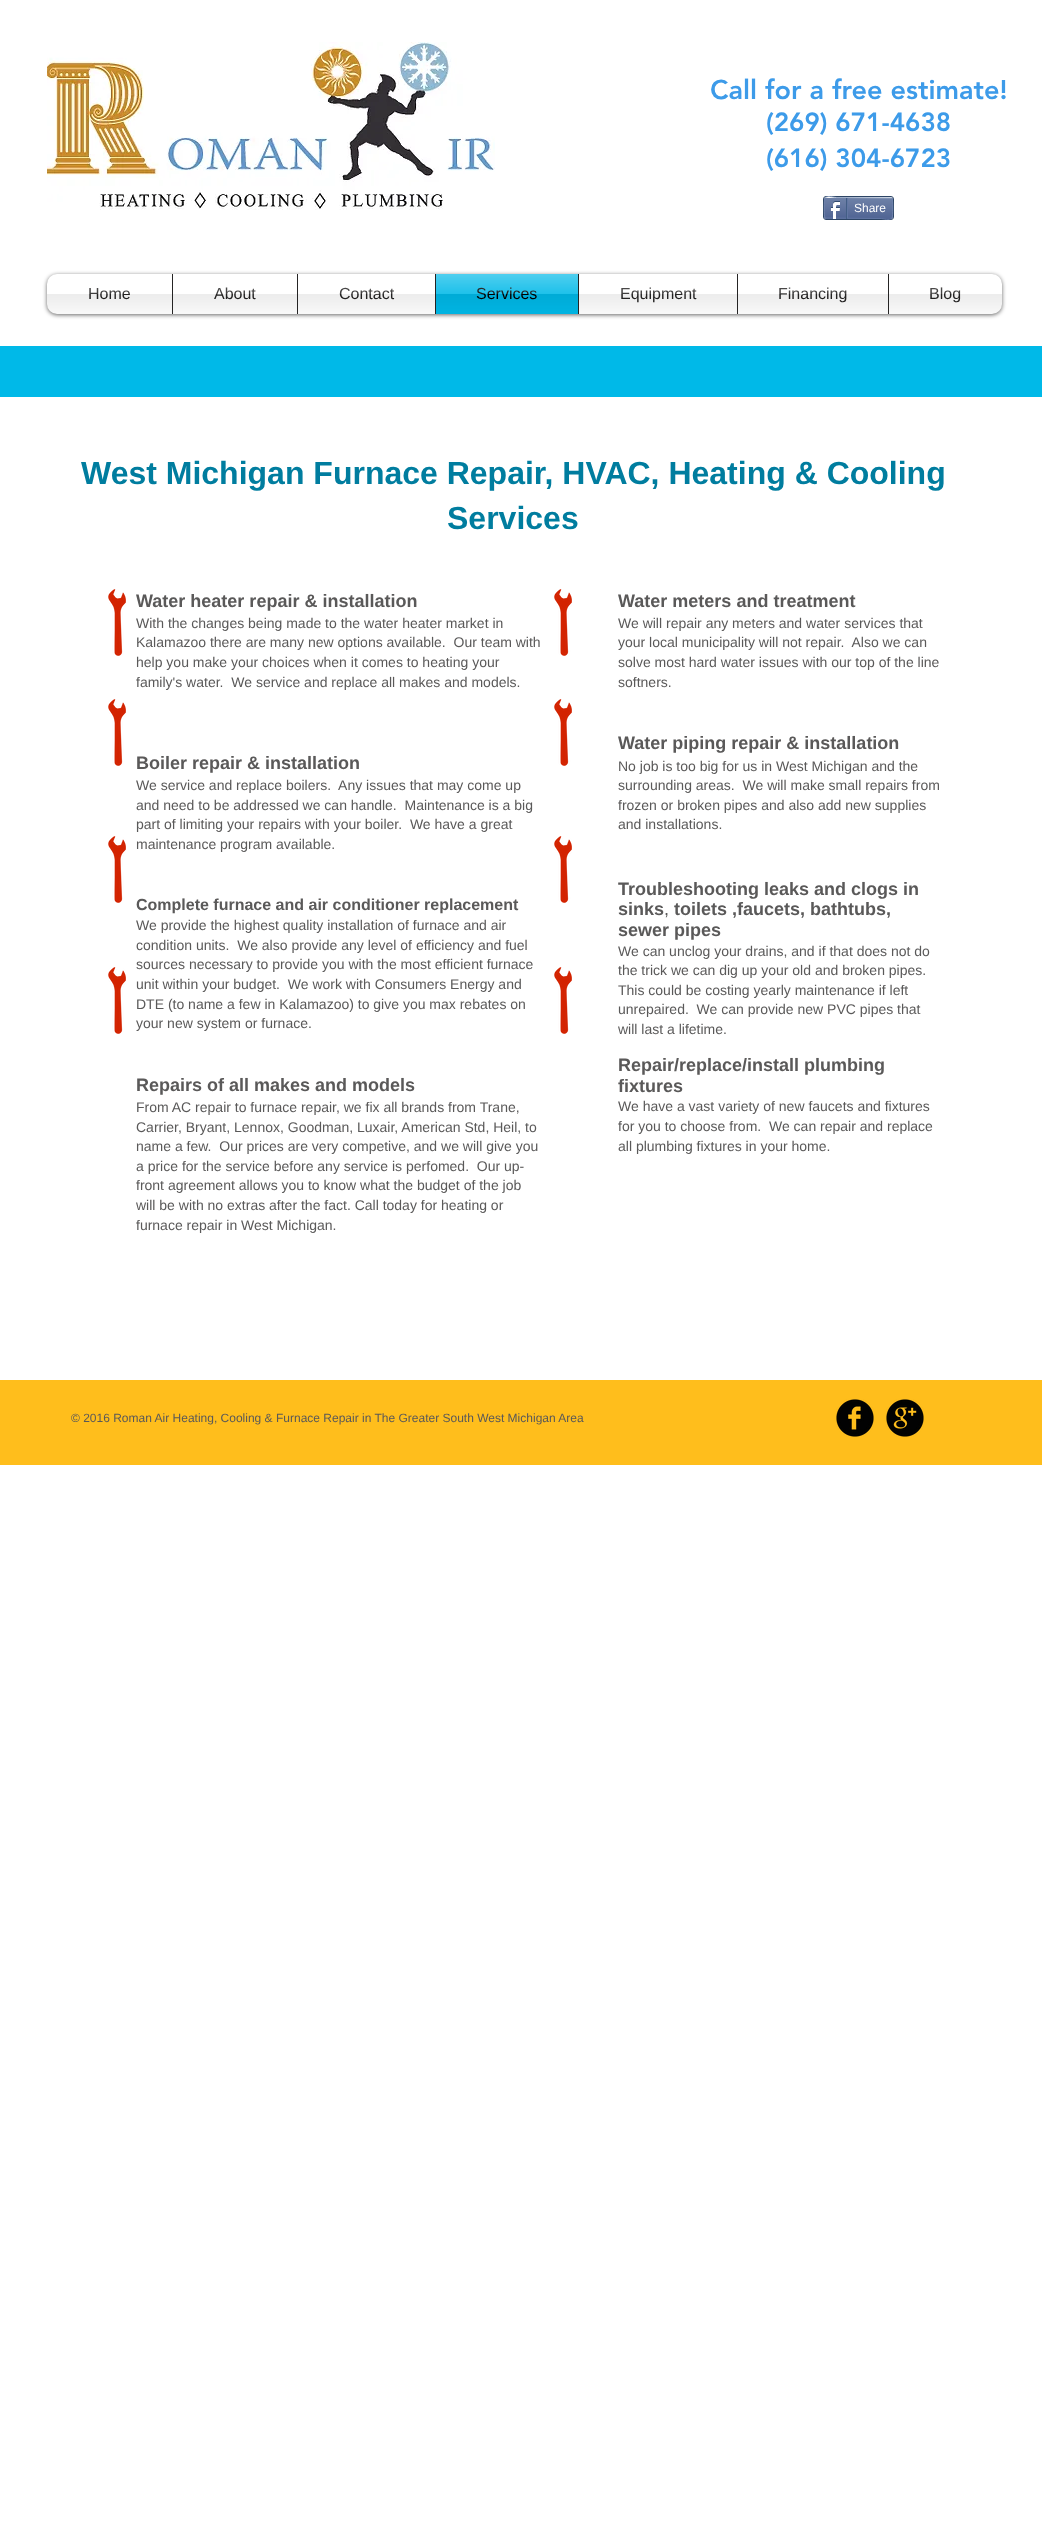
(async () => {
    const canvas = document.querySelector("canvas");
    canvas.width = 1042;
    canvas.height = 2524;
    const context = canvas.getContext("2d");
    context.miterLimit = 4;
    context.fontKerning = "normal";
    function write(s, x, y, font, color) {
        context.font = font;
        context.fillStyle = color;
        context.fillText(s, x, y);
    }
    function block(x, y, w, h, color) {
        context.fillStyle = color;
        context.fillRect(x, y, w, h);
    }
    async function photo(src, x, y, w, h) {
        const img = new Image();
        img.src = src;
        await img.decode();
        context.drawImage(img, x, y, w, h);
    }

    block(0, 0, 1042, 2524, "rgb(255, 255, 255)");
    await photo("media/1.png", 47, 42, 448, 168);
    write("Call for a free estimate!", 710, 99, "900 27px 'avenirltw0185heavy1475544'", "rgb(61, 155, 233)");
    write("(269) 671-4638", 766, 131, "900 26px 'avenirltw0185heavy1475544'", "rgb(61, 155, 233)");
    write("(616) 304-6723", 766, 167, "900 26px 'avenirltw0185heavy1475544'", "rgb(61, 155, 233)");
    context.beginPath();
    context.roundRect(823.5, 196.5, 70, 23, 2.5);
    context.strokeStyle = "rgb(45, 69, 101)";
    context.stroke();
    await photo("media/2.png", 824, 198, 69, 21);
    context.beginPath();
    context.moveTo(825, 198);
    context.bezierCurveTo(828, 195, 833, 197.5, 837, 197.5);
    context.lineTo(892, 198);
    context.strokeStyle = "rgb(154, 171, 198)";
    context.stroke();
    context.beginPath();
    context.moveTo(892, 198);
    context.bezierCurveTo(893, 198.5, 893, 217.5, 892, 218);
    context.strokeStyle = "rgb(111, 131, 173)";
    context.stroke();
    context.beginPath();
    context.moveTo(892, 218);
    context.bezierCurveTo(889, 221, 884, 218.5, 880, 218.5);
    context.lineTo(825, 218);
    context.strokeStyle = "rgb(97, 118, 163)";
    context.stroke();
    context.beginPath();
    context.moveTo(825, 218);
    context.bezierCurveTo(824, 217.5, 824, 198.5, 825, 198);
    context.strokeStyle = "rgb(111, 131, 173)";
    context.stroke();
    await photo("media/3.png", 830, 201, 10, 18);
    block(846, 198, 1, 21, "rgb(66, 94, 133)");
    write("Share", 854, 212, "12px Liberation Sans", "rgb(255, 255, 255)");
    block(847, 198, 1, 20, "rgb(97, 118, 163)");
    context.fillStyle = "rgba(0, 0, 0, 0.6)";
    context.filter = "blur(2px)";
    context.beginPath();
    context.roundRect(47, 275, 955, 40, 10);
    context.fill();
    context.filter = "none";
    await photo("media/4.png", 47, 304, 955, 10);
    context.fillStyle = "rgb(255, 255, 255)";
    context.beginPath();
    context.roundRect(47, 274, 125, 40, [10, 0, 0, 10]);
    context.fill();
    write("Home", 88, 299, "16px Liberation Sans", "rgb(37, 36, 36)");
    await photo("media/5.png", 47, 288, 125, 26);
    block(173, 274, 124, 40, "rgb(255, 255, 255)");
    block(172, 274, 1, 40, "rgb(37, 36, 36)");
    write("About", 214, 299, "16px Liberation Sans", "rgb(37, 36, 36)");
    await photo("media/6.png", 173, 287, 124, 27);
    block(298, 274, 137, 40, "rgb(255, 255, 255)");
    block(297, 274, 1, 40, "rgb(37, 36, 36)");
    write("Contact", 339, 299, "16px Liberation Sans", "rgb(37, 36, 36)");
    await photo("media/7.png", 298, 287, 137, 27);
    block(436, 274, 142, 40, "rgb(0, 185, 232)");
    block(435, 274, 1, 40, "rgb(37, 36, 36)");
    write("Services", 476, 299, "16px Liberation Sans", "rgb(0, 0, 0)");
    await photo("media/8.png", 436, 274, 142, 40);
    block(579, 274, 158, 40, "rgb(255, 255, 255)");
    block(578, 274, 1, 40, "rgb(37, 36, 36)");
    write("Equipment", 620, 299, "16px Liberation Sans", "rgb(37, 36, 36)");
    await photo("media/9.png", 579, 287, 158, 27);
    block(738, 274, 150, 40, "rgb(255, 255, 255)");
    block(737, 274, 1, 40, "rgb(37, 36, 36)");
    write("Financing", 778, 299, "16px Liberation Sans", "rgb(37, 36, 36)");
    await photo("media/10.png", 738, 287, 150, 27);
    context.fillStyle = "rgb(255, 255, 255)";
    context.beginPath();
    context.roundRect(888, 274, 114, 40, [0, 10, 10, 0]);
    context.fill();
    block(888, 274, 1, 40, "rgb(37, 36, 36)");
    write("Blog", 929, 299, "16px Liberation Sans", "rgb(37, 36, 36)");
    await photo("media/11.png", 889, 287, 113, 27);
    block(0, 346, 1042, 51, "rgb(0, 185, 232)");
    write("West Michigan Furnace Repair, HVAC, Heating & Cooling", 81, 484, "bold 32px Liberation Sans", "rgb(0, 125, 159)");
    write("Services", 447, 529, "bold 32px Liberation Sans", "rgb(0, 125, 159)");
    await photo("media/12.png", 108, 589, 18, 67);
    write("Water heater repair & installation", 136, 607, "bold 18px Liberation Sans", "rgb(90, 89, 89)");
    write("With the changes being made to the water heater market in", 136, 628, "14px Liberation Sans", "rgb(90, 89, 89)");
    write("Kalamazoo there are many new options available.  Our team with", 136, 647, "14px Liberation Sans", "rgb(90, 89, 89)");
    write("help you make your choices when it comes to heating your", 136, 667, "14px Liberation Sans", "rgb(90, 89, 89)");
    write("family's water.  We service and replace all makes and models.", 136, 687, "14px Liberation Sans", "rgb(90, 89, 89)");
    write("Boiler repair & installation", 136, 769, "bold 18px Liberation Sans", "rgb(90, 89, 89)");
    write("We service and replace boilers.  Any issues that may come up", 136, 790, "14px Liberation Sans", "rgb(90, 89, 89)");
    write("and need to be addressed we can handle.  Maintenance is a big", 136, 810, "14px Liberation Sans", "rgb(90, 89, 89)");
    write("part of limiting your repairs with your boiler.  We have a great", 136, 829, "14px Liberation Sans", "rgb(90, 89, 89)");
    write("maintenance program available.", 136, 849, "14px Liberation Sans", "rgb(90, 89, 89)");
    write("Complete furnace and air conditioner replacement", 136, 910, "bold 16px Liberation Sans", "rgb(90, 89, 89)");
    write("We provide the highest quality installation of furnace and air", 136, 930, "14px Liberation Sans", "rgb(90, 89, 89)");
    write("condition units.  We also provide any level of efficiency and fuel", 136, 950, "14px Liberation Sans", "rgb(90, 89, 89)");
    write("sources necessary to provide you with the most efficient furnace", 136, 969, "14px Liberation Sans", "rgb(90, 89, 89)");
    write("unit within your budget.  We work with Consumers Energy and", 136, 989, "14px Liberation Sans", "rgb(90, 89, 89)");
    write("DTE (to name a few in Kalamazoo) to give you max rebates on", 136, 1009, "14px Liberation Sans", "rgb(90, 89, 89)");
    write("your new system or furnace.", 136, 1028, "14px Liberation Sans", "rgb(90, 89, 89)");
    write("Repairs of all makes and models", 136, 1091, "bold 18px Liberation Sans", "rgb(90, 89, 89)");
    write("From AC repair to furnace repair, we fix all brands from Trane,", 136, 1112, "14px Liberation Sans", "rgb(90, 89, 89)");
    write("Carrier, Bryant, Lennox, Goodman, Luxair, American Std, Heil, to", 136, 1132, "14px Liberation Sans", "rgb(90, 89, 89)");
    write("name a few.  Our prices are very competive, and we will give you", 136, 1151, "14px Liberation Sans", "rgb(90, 89, 89)");
    write("a price for the service before any service is perfomed.  Our up-", 136, 1171, "14px Liberation Sans", "rgb(90, 89, 89)");
    write("front agreement allows you to know what the budget of the job", 136, 1190, "14px Liberation Sans", "rgb(90, 89, 89)");
    write("will be with no extras after the fact. Call today for heating or", 136, 1210, "14px Liberation Sans", "rgb(90, 89, 89)");
    write("furnace repair in West Michigan.", 136, 1230, "14px Liberation Sans", "rgb(90, 89, 89)");
    await photo("media/12.png", 554, 589, 18, 67);
    write("Water meters and treatment", 618, 607, "bold 18px Liberation Sans", "rgb(90, 89, 89)");
    write("We will repair any meters and water services that", 618, 628, "14px Liberation Sans", "rgb(90, 89, 89)");
    write("your local municipality will not repair.  Also we can", 618, 647, "14px Liberation Sans", "rgb(90, 89, 89)");
    write("solve most hard water issues with our top of the line", 618, 667, "14px Liberation Sans", "rgb(90, 89, 89)");
    write("softners.", 618, 687, "14px Liberation Sans", "rgb(90, 89, 89)");
    write("Water piping repair & installation", 618, 749, "bold 18px Liberation Sans", "rgb(90, 89, 89)");
    write("No job is too big for us in West Michigan and the", 618, 771, "14px Liberation Sans", "rgb(90, 89, 89)");
    write("surrounding areas.  We will make small repairs from", 618, 790, "14px Liberation Sans", "rgb(90, 89, 89)");
    write("frozen or broken pipes and also add new supplies", 618, 810, "14px Liberation Sans", "rgb(90, 89, 89)");
    write("and installations.", 618, 829, "14px Liberation Sans", "rgb(90, 89, 89)");
    write("Troubleshooting leaks and clogs in", 618, 895, "bold 18px Liberation Sans", "rgb(90, 89, 89)");
    write("sinks", 618, 915, "bold 18px Liberation Sans", "rgb(90, 89, 89)");
    write(",", 664, 915, "18px Liberation Sans", "rgb(90, 89, 89)");
    write("toilets ,faucets, bathtubs,", 674, 915, "bold 18px Liberation Sans", "rgb(90, 89, 89)");
    write("sewer pipes", 618, 936, "bold 18px Liberation Sans", "rgb(90, 89, 89)");
    write("We can unclog your drains, and if that does not do", 618, 956, "14px Liberation Sans", "rgb(90, 89, 89)");
    write("the trick we can dig up your old and broken pipes.", 618, 975, "14px Liberation Sans", "rgb(90, 89, 89)");
    write("This could be costing yearly maintenance if left", 618, 995, "14px Liberation Sans", "rgb(90, 89, 89)");
    write("unrepaired.  We can provide new PVC pipes that", 618, 1014, "14px Liberation Sans", "rgb(90, 89, 89)");
    write("will last a lifetime.", 618, 1034, "14px Liberation Sans", "rgb(90, 89, 89)");
    write("Repair/replace/install plumbing", 618, 1071, "bold 18px Liberation Sans", "rgb(90, 89, 89)");
    write("fixtures", 618, 1092, "bold 18px Liberation Sans", "rgb(90, 89, 89)");
    write("We have a vast variety of new faucets and fixtures", 618, 1111, "14px Liberation Sans", "rgb(90, 89, 89)");
    write("for you to choose from.  We can repair and replace", 618, 1131, "14px Liberation Sans", "rgb(90, 89, 89)");
    write("all plumbing fixtures in your home.", 618, 1151, "14px Liberation Sans", "rgb(90, 89, 89)");
    await photo("media/12.png", 108, 699, 18, 67);
    await photo("media/12.png", 554, 699, 18, 67);
    await photo("media/12.png", 108, 836, 18, 67);
    await photo("media/12.png", 554, 836, 18, 67);
    await photo("media/12.png", 108, 967, 18, 67);
    await photo("media/12.png", 554, 967, 18, 67);
    block(0, 1380, 1042, 85, "rgb(255, 190, 28)");
    write("© 2016 Roman Air Heating, Cooling & Furnace Repair in The Greater South West Michigan Area", 71, 1422, "12px Liberation Sans", "rgb(90, 89, 89)");
    await photo("media/13.png", 836, 1399, 38, 38);
    await photo("media/14.png", 886, 1399, 38, 38);
})();
